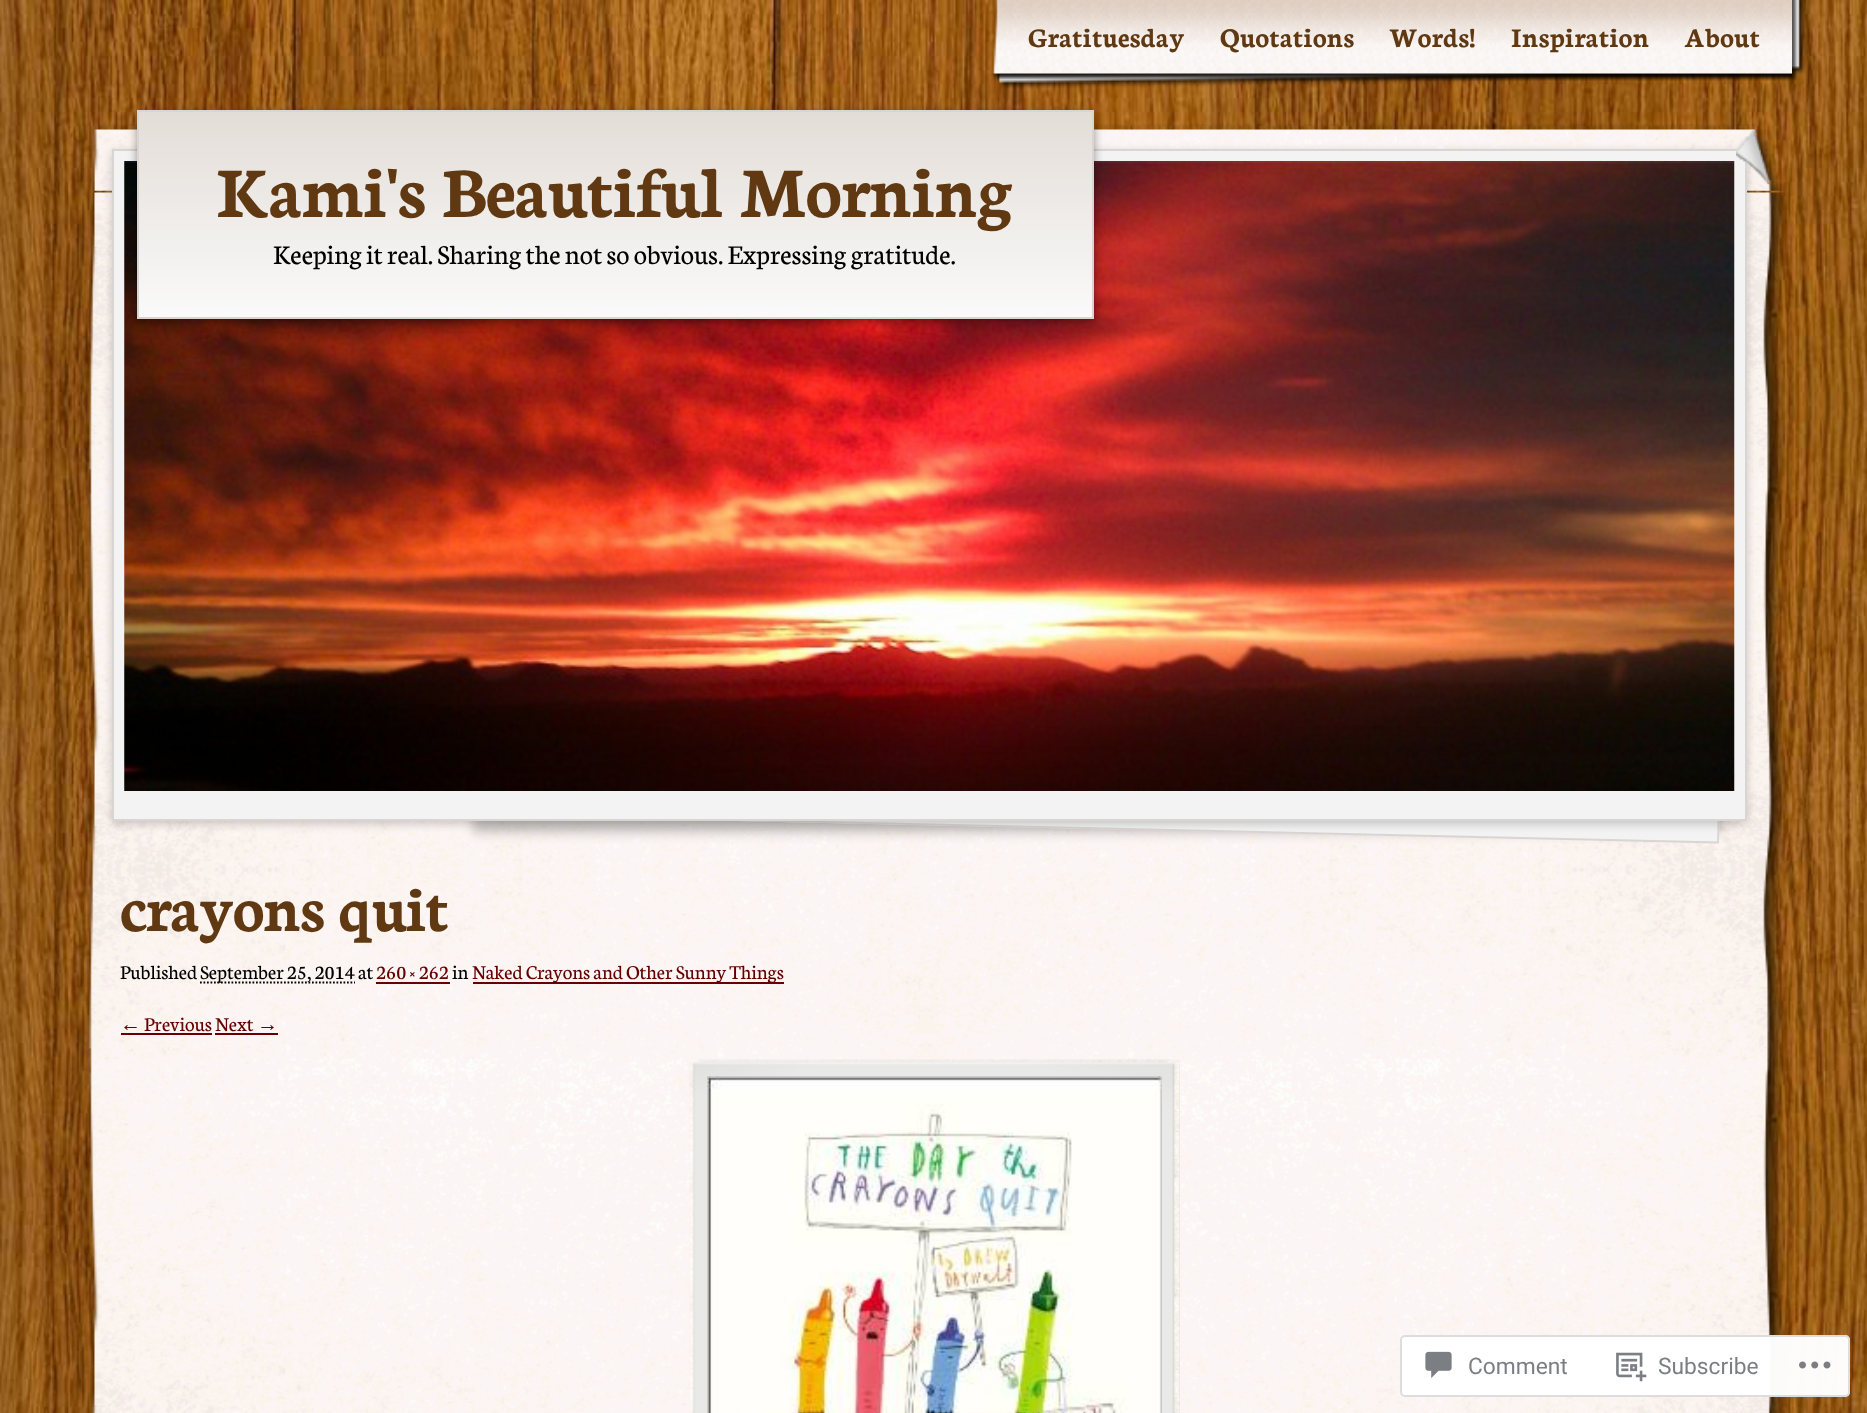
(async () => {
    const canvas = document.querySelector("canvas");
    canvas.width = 1867;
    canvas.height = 1413;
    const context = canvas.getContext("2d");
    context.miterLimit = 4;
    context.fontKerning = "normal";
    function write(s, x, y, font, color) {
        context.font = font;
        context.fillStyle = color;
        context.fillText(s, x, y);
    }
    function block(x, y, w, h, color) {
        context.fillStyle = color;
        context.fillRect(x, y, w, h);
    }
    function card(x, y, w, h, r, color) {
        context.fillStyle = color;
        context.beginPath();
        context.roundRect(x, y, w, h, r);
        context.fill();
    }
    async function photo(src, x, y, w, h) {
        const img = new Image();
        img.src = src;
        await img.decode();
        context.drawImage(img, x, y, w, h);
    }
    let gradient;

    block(0, 0, 1867, 1413, "rgb(255, 255, 255)");
    await photo("media/1.png", 0, 0, 1867, 1413);
    await photo("media/2.png", 0, 0, 1867, 1413);
    await photo("media/3.png", 990, 0, 802, 89);
    await photo("media/4.png", 997, 0, 795, 81);
    write("Gratituesday", 1028, 47, "bold 28.9px Neuton", "rgb(96, 57, 19)");
    write("Quotations", 1220, 47, "bold 28.9px Neuton", "rgb(96, 57, 19)");
    write("Words!", 1389, 47, "bold 28.9px Neuton", "rgb(96, 57, 19)");
    write("Inspiration", 1511, 47, "bold 28.9px Neuton", "rgb(96, 57, 19)");
    write("About", 1684, 47, "bold 28.9px Neuton", "rgb(96, 57, 19)");
    await photo("media/5.png", 1792, 0, 14, 81);
    await photo("media/6.png", 91, 124, 1696, 67);
    await photo("media/9.png", 86, 192, 1702, 1221);
    context.fillStyle = "rgba(0, 0, 0, 0.2)";
    context.filter = "blur(5.5px)";
    context.beginPath();
    context.rect(473, 630, 1249, 203);
    context.fill();
    context.filter = "none";
    context.fillStyle = "rgb(243, 243, 243)";
    context.beginPath();
    context.moveTo(474, 612);
    context.lineTo(1723, 640);
    context.lineTo(1719, 843);
    context.lineTo(469, 815);
    context.closePath();
    context.fill();
    context.beginPath();
    context.moveTo(475, 613);
    context.lineTo(1722.5, 641);
    context.lineTo(1718, 842.5);
    context.lineTo(470.5, 814);
    context.closePath();
    context.strokeStyle = "rgb(217, 213, 211)";
    context.lineWidth = 1.8;
    context.stroke();
    context.fillStyle = "rgba(0, 0, 0, 0.2)";
    context.filter = "blur(5px)";
    context.beginPath();
    context.rect(112, 152, 1635, 672);
    context.fill();
    context.filter = "none";
    context.fillStyle = "rgb(243, 243, 243)";
    context.beginPath();
    context.rect(113, 150, 1633, 670);
    context.fill();
    context.lineWidth = 2;
    context.stroke();
    await photo("media/7.png", 1736, 129, 44, 56);
    await photo("media/8.png", 124, 161, 1611, 630);
    context.fillStyle = "rgba(0, 0, 0, 0.4)";
    context.filter = "blur(5px)";
    context.beginPath();
    context.rect(137, 114, 957, 208);
    context.fill();
    context.filter = "none";
    gradient = context.createLinearGradient(615, 112, 615, 317);
    gradient.addColorStop(0, "rgb(227, 221, 215)");
    gradient.addColorStop(1, "rgb(250, 250, 250)");
    context.fillStyle = gradient;
    context.fillRect(139, 112, 953, 205);
    context.strokeRect(138, 111, 955, 207);
    context.letterSpacing = "-1.75px";
    write("Kami's Beautiful Morning", 216, 217, "bold 76.1px Neuton", "rgb(96, 57, 19)");
    context.letterSpacing = "0px";
    write("Keeping it real. Sharing the not so obvious. Expressing gratitude.", 273, 264, "28.9px Neuton", "rgb(0, 0, 0)");
    context.letterSpacing = "-1.75px";
    write("crayons quit", 120, 931, "bold 66.5px Neuton", "rgb(96, 57, 19)");
    context.letterSpacing = "0px";
    write("Published", 120, 979, "21px Neuton", "rgb(0, 0, 0)");
    context.beginPath();
    context.moveTo(200, 982.5);
    context.lineTo(355, 982.5);
    context.strokeStyle = "rgb(0, 0, 0)";
    context.lineWidth = 1.8;
    context.setLineDash([1.75, 1.75]);
    context.stroke();
    write("September 25, 2014 at", 200, 979, "21px Neuton", "rgb(0, 0, 0)");
    write("260 × 262", 376, 979, "21px Neuton", "rgb(102, 0, 0)");
    block(376, 982, 74, 2, "rgb(102, 0, 0)");
    write("in", 452, 979, "21px Neuton", "rgb(0, 0, 0)");
    block(473, 982, 311, 2, "rgb(102, 0, 0)");
    write("Naked Crayons and Other Sunny Things", 472, 979, "21px Neuton", "rgb(102, 0, 0)");
    write("←", 120, 1031, "21px Liberation Serif", "rgb(102, 0, 0)");
    block(121, 1033, 91, 2, "rgb(102, 0, 0)");
    write("Previous Next", 144, 1031, "21px Neuton", "rgb(102, 0, 0)");
    write("→", 257, 1031, "21px Liberation Serif", "rgb(102, 0, 0)");
    block(215, 1033, 63, 2, "rgb(102, 0, 0)");
    block(1179, 1059, 1, 354, "rgb(233, 233, 232)");
    await photo("media/10.png", 689, 1059, 491, 354);
    await photo("media/11.png", 707, 1076, 454, 1);
    card(1400, 1335, 450, 62, 5, "rgba(255, 255, 255, 0.98)");
    context.beginPath();
    context.roundRect(1401, 1336, 448, 60, 4);
    context.strokeStyle = "rgba(220, 220, 222, 0.98)";
    context.lineWidth = 2;
    context.setLineDash([]);
    context.stroke();
    await photo("media/12.png", 1425, 1351, 27, 27);
    write("Comment", 1468, 1374, "22.75px Roboto", "rgb(123, 127, 132)");
    await photo("media/13.png", 1616, 1352, 31, 30);
    write("Subscribe", 1658, 1374, "22.75px Roboto", "rgb(123, 127, 132)");
    await photo("media/14.png", 1799, 1361, 32, 8);
})();
